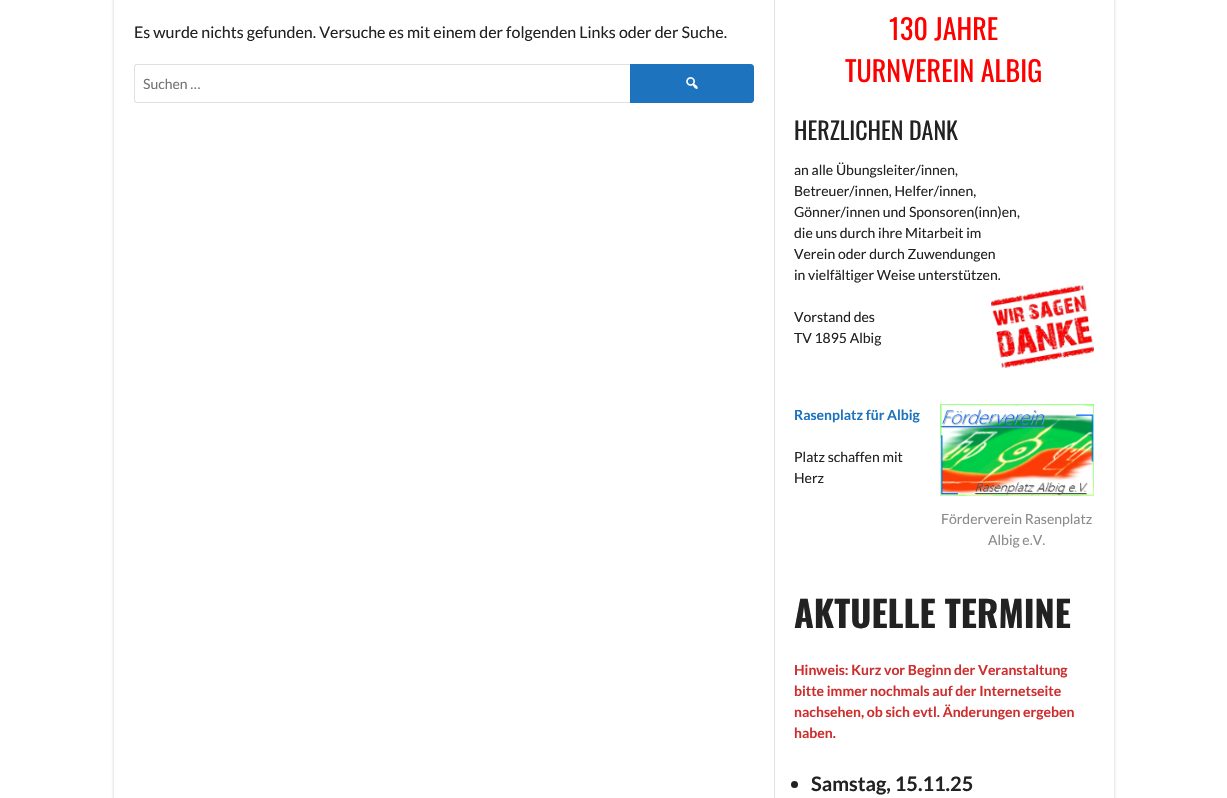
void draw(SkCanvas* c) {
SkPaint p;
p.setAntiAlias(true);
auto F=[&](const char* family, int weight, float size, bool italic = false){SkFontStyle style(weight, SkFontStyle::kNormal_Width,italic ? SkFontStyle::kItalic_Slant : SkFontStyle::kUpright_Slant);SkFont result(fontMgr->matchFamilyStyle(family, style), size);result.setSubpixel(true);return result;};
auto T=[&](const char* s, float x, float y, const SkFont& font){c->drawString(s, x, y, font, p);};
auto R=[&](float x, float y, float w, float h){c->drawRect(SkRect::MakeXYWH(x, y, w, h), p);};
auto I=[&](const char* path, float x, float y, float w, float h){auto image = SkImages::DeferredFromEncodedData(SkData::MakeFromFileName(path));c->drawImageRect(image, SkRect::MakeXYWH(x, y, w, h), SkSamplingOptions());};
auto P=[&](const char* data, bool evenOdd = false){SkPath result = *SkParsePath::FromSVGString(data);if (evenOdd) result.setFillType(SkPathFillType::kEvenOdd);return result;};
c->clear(0xffffffff);
c->save();
c->clipPath(P("M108 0h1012v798h-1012zm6-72h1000v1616h-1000z",true),true);
p.setColor(0x33000000);
p.setMaskFilter(SkMaskFilter::MakeBlur(kNormal_SkBlurStyle, 1.5));
c->drawRect(SkRect::MakeXYWH(114,-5,1000,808),p);
p.setMaskFilter(nullptr);
c->restore();
auto f1 = F("Lato",400,16);
p.setColor(0xff222222);
T("Es wurde nichts gefunden. Versuche es mit einem der folgenden Links oder der Suche.",134,38,f1);
p.setColor(0xffe0e0e0);
c->drawPath(P("M137 64h493v39h-493c-2 0-3-1-3-3v-33c0-2 1-3 3-3zm0 1h493v37h-493c-1 0-2-1-2-2v-33c0-1 1-2 2-2z",true),p);
auto f2 = F("Lato",400,14);
p.setColor(0xff757575);
T("Suchen …",143,89,f2);
p.setColor(0xff1e73be);
c->drawPath(P("M630 64h121c1.5 0 3 1.5 3 3v33c0 1.5-1.5 3-3 3h-121z"),p);
I("1.png",686,77,12,12);
p.setColor(0xffe0e0e0);
R(774,0,1,798);
auto f3 = F("Oswald",400,28);
p.setColor(0xffff0000);
T("130 JAHRE",889,40,f3);
T("TURNVEREIN ALBIG",845,82,f3);
auto f4 = F("Oswald",400,24);
p.setColor(0xff222222);
T("HERZLICHEN DANK",794,140,f4);
T("an alle Übungsleiter/innen,",794,175,f2);
T("Betreuer/innen, Helfer/innen,",794,196,f2);
T("Gönner/innen und Sponsoren(inn)en,",794,217,f2);
T("die uns durch ihre Mitarbeit im",794,238,f2);
T("Verein oder durch Zuwendungen",794,259,f2);
T("in vielfältiger Weise unterstützen.",794,280,f2);
T("Vorstand des",794,322,f2);
I("2.png",991,285,103,83);
T("TV 1895 Albig",794,343,f2);
auto f5 = F("Lato",700,14);
p.setColor(0xff1e73be);
T("Rasenplatz für Albig",794,420,f5);
p.setColor(0xff222222);
T("Platz schaffen mit",794,462,f2);
T("Herz",794,483,f2);
I("3.png",940,404,154,92);
p.setColor(0xff8b8b8b);
T("Förderverein Rasenplatz",941,524,f2);
T("Albig e.V.",988,545,f2);
auto f6 = F("Oswald",700,36);
p.setColor(0xff222222);
T("AKTUELLE TERMINE",794,628,f6);
p.setColor(0xffcf2e2e);
T("Hinweis: Kurz vor Beginn der Veranstaltung",794,675,f5);
T("bitte immer nochmals auf der Internetseite",794,696,f5);
T("nachsehen, ob sich evtl. Änderungen ergeben",794,717,f5);
T("haben.",794,738,f5);
p.setColor(0xff222222);
c->drawCircle(794.5,784.5,3.5,p);
auto f7 = F("Lato",700,20);
T("Samstag, 15.11.25",811,791,f7);
}
